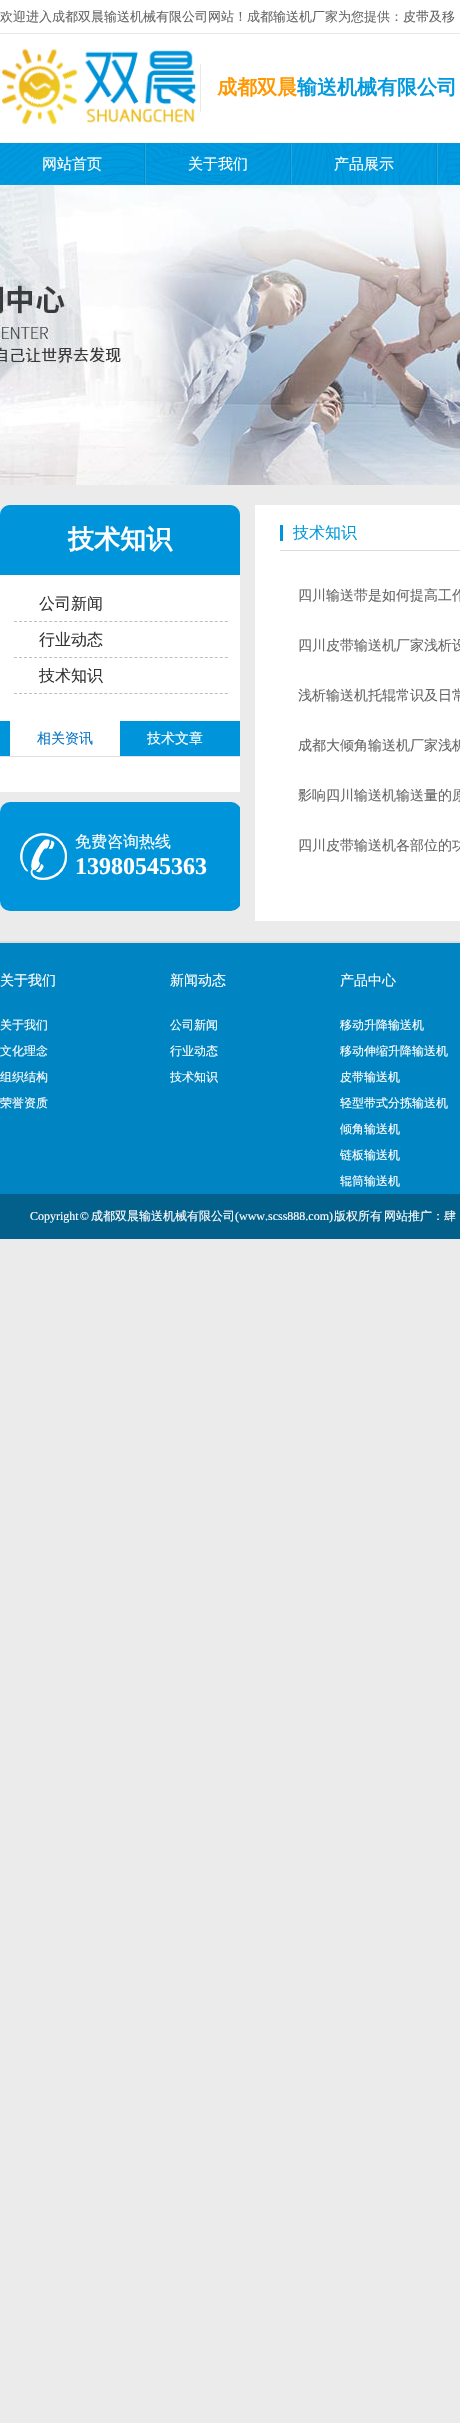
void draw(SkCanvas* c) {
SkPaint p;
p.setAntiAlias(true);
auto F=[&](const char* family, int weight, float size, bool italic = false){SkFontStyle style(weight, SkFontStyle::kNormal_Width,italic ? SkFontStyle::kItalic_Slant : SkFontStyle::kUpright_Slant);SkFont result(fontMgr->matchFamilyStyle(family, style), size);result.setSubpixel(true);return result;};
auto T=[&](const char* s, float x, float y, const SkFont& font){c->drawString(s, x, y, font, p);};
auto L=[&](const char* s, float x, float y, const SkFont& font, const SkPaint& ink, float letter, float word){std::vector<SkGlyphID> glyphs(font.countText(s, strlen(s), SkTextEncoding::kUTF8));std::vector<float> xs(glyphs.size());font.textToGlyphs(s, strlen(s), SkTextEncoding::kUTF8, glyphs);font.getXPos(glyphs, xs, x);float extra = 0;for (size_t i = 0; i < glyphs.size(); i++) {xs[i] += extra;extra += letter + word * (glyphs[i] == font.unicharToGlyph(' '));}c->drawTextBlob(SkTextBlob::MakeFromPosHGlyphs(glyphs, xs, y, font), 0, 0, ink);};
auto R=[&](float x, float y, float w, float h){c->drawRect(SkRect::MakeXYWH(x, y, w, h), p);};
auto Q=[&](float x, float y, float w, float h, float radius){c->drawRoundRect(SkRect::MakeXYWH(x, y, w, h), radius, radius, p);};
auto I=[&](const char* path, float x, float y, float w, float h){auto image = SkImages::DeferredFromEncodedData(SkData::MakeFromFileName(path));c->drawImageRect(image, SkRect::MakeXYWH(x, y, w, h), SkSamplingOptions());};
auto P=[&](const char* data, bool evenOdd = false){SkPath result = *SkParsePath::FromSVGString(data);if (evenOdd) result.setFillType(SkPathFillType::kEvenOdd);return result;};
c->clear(0xffebebeb);
p.setColor(0xffffffff);
R(0,0,460,143);
p.setColor(0xffe8e8e8);
R(0,33,460,1);
auto f1 = F("WenQuanYi Zen Hei",500,13);
p.setColor(0xff666666);
T("欢迎进入成都双晨输送机械有限公司网站！成都输送机厂家为您提供：皮带及移",0,21,f1);
I("1.png",2,48,195,77);
p.setColor(0xffe8e8e8);
R(200,64,1,48);
auto f2 = F("WenQuanYi Zen Hei",700,20);
p.setColor(0xffff9800);
T("成都双晨",217,94,f2);
p.setColor(0xff0299de);
T("输送机械有限公司",297,94,f2);
I("2.png",0,143,460,42);
p.setColor(0xff008eca);
R(144,143,1,42);
auto f3 = F("WenQuanYi Zen Hei",500,15);
p.setColor(0xffffffff);
T("网站首页",42,169,f3);
p.setColor(0xff008eca);
R(290,143,1,42);
p.setColor(0xff22a7e0);
R(145,143,1,42);
p.setColor(0xffffffff);
T("关于我们",188,169,f3);
p.setColor(0xff008eca);
R(436,143,1,42);
p.setColor(0xff22a7e0);
R(291,143,1,42);
p.setColor(0xffffffff);
T("产品展示",334,169,f3);
p.setColor(0xff22a7e0);
R(437,143,1,42);
I("3.png",0,185,460,300);
p.setColor(0xff0094da);
c->drawPath(P("M10 505h220c5.5 0 10 4.5 10 10v60h-240v-60c0-5.5 4.5-10 10-10z"),p);
auto f4 = F("WenQuanYi Zen Hei",700,26);
p.setColor(0xffffffff);
T("技术知识",68,548,f4);
R(0,575,240,217);
p.setStroke(true);
p.setStrokeWidth(1);
p.setColor(0xffbfbfbf);
p.setPathEffect(SkDashPathEffect::Make({{3,2.02f}}, 0));
c->drawPath(P("M14 621.5h214"),p);
p.setPathEffect(nullptr);
auto f5 = F("WenQuanYi Zen Hei",500,16);
p.setStroke(false);
p.setColor(0xff333333);
T("公司新闻",39,609,f5);
p.setStroke(true);
p.setColor(0xffbfbfbf);
p.setPathEffect(SkDashPathEffect::Make({{3,2.02f}}, 0));
c->drawPath(P("M14 657.5h214"),p);
p.setPathEffect(nullptr);
p.setStroke(false);
p.setColor(0xff333333);
T("行业动态",39,645,f5);
p.setStroke(true);
p.setColor(0xffbfbfbf);
p.setPathEffect(SkDashPathEffect::Make({{3,2.02f}}, 0));
c->drawPath(P("M14 693.5h214"),p);
p.setPathEffect(nullptr);
p.setStroke(false);
p.setColor(0xff333333);
T("技术知识",39,681,f5);
p.setColor(0xff0094da);
R(0,721,240,35);
p.setColor(0xffe0e0e0);
R(0,756,240,1);
p.setColor(0xffffffff);
R(10,721,110,35);
auto f6 = F("WenQuanYi Zen Hei",500,14);
p.setColor(0xff0474c8);
T("相关资讯",37,743,f6);
p.setColor(0xffffffff);
T("技术文章",147,743,f6);
c->save();
c->clipRect(SkRect::MakeXYWH(0,505,240,406));
p.setColor(0xff0094da);
Q(0,802,241,109,10);
c->restore();
I("4.png",20,833,47,47);
p.setColor(0xffffffff);
T("免费咨询热线",75,847,f5);
auto f7 = F("Liberation Serif",700,24);
T("13980545363",75,874,f7);
R(255,505,205,416);
p.setColor(0xffdbdbdb);
R(280,550,180,1);
p.setColor(0xff0094da);
R(280,525,3,16);
p.setColor(0xff0299de);
T("技术知识",293,538,f5);
p.setColor(0xff666666);
T("四川输送带是如何提高工作",298,600,f6);
T("四川皮带输送机厂家浅析设",298,650,f6);
T("浅析输送机托辊常识及日常",298,700,f6);
T("成都大倾角输送机厂家浅析",298,750,f6);
T("影响四川输送机输送量的原",298,800,f6);
T("四川皮带输送机各部位的功",298,850,f6);
p.setColor(0xffdddddd);
R(0,941,460,2);
p.setColor(0xff0084c2);
R(0,943,460,251);
p.setColor(0xffffffff);
T("关于我们",0,985,f6);
auto f8 = F("WenQuanYi Zen Hei",500,12);
T("关于我们",0,1029,f8);
T("文化理念",0,1055,f8);
T("组织结构",0,1081,f8);
T("荣誉资质",0,1107,f8);
T("新闻动态",170,985,f6);
T("公司新闻",170,1029,f8);
T("行业动态",170,1055,f8);
T("技术知识",170,1081,f8);
T("产品中心",340,985,f6);
T("移动升降输送机",340,1029,f8);
T("移动伸缩升降输送机",340,1055,f8);
T("皮带输送机",340,1081,f8);
T("轻型带式分拣输送机",340,1107,f8);
T("倾角输送机",340,1133,f8);
T("链板输送机",340,1159,f8);
T("辊筒输送机",340,1185,f8);
p.setColor(0xff03608b);
R(0,1194,460,45);
auto f9 = F("Liberation Serif",400,12);
p.setColor(0xffffffff);
L("Copyright ©",30,1220,f9,p,0,-2);
T("成都双晨输送机械有限公司",91,1220,f8);
T("(www.scss888.com)",235,1220,f9);
T("版权所有",334,1220,f8);
T("网站推广：肆",384,1220,f8);
}
